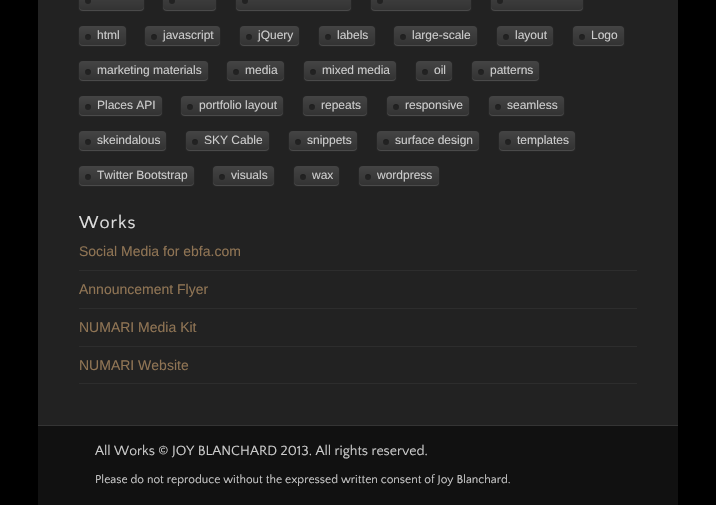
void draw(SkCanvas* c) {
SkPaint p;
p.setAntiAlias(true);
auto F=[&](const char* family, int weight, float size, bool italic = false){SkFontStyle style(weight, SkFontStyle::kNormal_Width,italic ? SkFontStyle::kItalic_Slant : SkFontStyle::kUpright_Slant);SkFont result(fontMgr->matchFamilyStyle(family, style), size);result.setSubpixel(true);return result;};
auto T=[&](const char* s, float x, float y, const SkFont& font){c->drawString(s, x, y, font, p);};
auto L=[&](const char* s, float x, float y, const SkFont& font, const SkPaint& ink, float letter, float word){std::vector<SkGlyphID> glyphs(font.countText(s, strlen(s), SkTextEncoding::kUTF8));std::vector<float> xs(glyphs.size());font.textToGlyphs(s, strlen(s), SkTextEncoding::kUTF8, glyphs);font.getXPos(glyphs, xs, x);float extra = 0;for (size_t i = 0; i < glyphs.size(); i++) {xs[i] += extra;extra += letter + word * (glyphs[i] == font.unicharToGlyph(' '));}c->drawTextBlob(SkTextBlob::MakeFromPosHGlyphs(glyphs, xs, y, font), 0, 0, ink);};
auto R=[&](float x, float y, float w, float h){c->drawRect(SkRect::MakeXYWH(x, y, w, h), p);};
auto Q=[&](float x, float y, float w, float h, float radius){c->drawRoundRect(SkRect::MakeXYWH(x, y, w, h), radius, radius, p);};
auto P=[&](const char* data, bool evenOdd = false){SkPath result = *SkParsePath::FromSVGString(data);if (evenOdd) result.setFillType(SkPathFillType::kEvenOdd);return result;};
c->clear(0xff000000);
p.setColor(0xff222222);
R(38,0,640,425);
p.setColor(0x33ffffff);
p.setMaskFilter(SkMaskFilter::MakeBlur(kNormal_SkBlurStyle, .5));
c->drawRoundRect(SkRect::MakeXYWH(79,-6,65,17),4,4,p);
p.setMaskFilter(nullptr);
{
const SkColor colors[] = {0xff444444,0xff333333};
const float stops[] = {0,1};
const SkPoint ends[] = {{112,-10}, {112,10}};
p.setShader(SkGradientShader::MakeLinear(ends, colors, stops, 2, SkTileMode::kClamp));
p.setAlpha(255);
}
Q(79,-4,65,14,4);
p.setShader(nullptr);
p.setColor(0xff222222);
c->drawCircle(88,1,3,p);
p.setColor(0x33ffffff);
p.setMaskFilter(SkMaskFilter::MakeBlur(kNormal_SkBlurStyle, .5));
c->drawRoundRect(SkRect::MakeXYWH(163,-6,53,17),4,4,p);
p.setMaskFilter(nullptr);
{
const SkColor colors[] = {0xff444444,0xff333333};
const float stops[] = {0,1};
const SkPoint ends[] = {{190,-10}, {190,10}};
p.setShader(SkGradientShader::MakeLinear(ends, colors, stops, 2, SkTileMode::kClamp));
p.setAlpha(255);
}
Q(163,-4,53,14,4);
p.setShader(nullptr);
p.setColor(0xff222222);
c->drawCircle(172,1,3,p);
p.setColor(0x33ffffff);
p.setMaskFilter(SkMaskFilter::MakeBlur(kNormal_SkBlurStyle, .5));
c->drawRoundRect(SkRect::MakeXYWH(236,-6,115,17),4,4,p);
p.setMaskFilter(nullptr);
{
const SkColor colors[] = {0xff444444,0xff333333};
const float stops[] = {0,1};
const SkPoint ends[] = {{294,-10}, {294,10}};
p.setShader(SkGradientShader::MakeLinear(ends, colors, stops, 2, SkTileMode::kClamp));
p.setAlpha(255);
}
Q(236,-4,115,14,4);
p.setShader(nullptr);
p.setColor(0xff222222);
c->drawCircle(245,1,3,p);
p.setColor(0x33ffffff);
p.setMaskFilter(SkMaskFilter::MakeBlur(kNormal_SkBlurStyle, .5));
c->drawRoundRect(SkRect::MakeXYWH(371,-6,100,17),4,4,p);
p.setMaskFilter(nullptr);
{
const SkColor colors[] = {0xff444444,0xff333333};
const float stops[] = {0,1};
const SkPoint ends[] = {{421,-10}, {421,10}};
p.setShader(SkGradientShader::MakeLinear(ends, colors, stops, 2, SkTileMode::kClamp));
p.setAlpha(255);
}
Q(371,-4,100,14,4);
p.setShader(nullptr);
p.setColor(0xff222222);
c->drawCircle(380,1,3,p);
p.setColor(0x33ffffff);
p.setMaskFilter(SkMaskFilter::MakeBlur(kNormal_SkBlurStyle, .5));
c->drawRoundRect(SkRect::MakeXYWH(491,-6,92,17),4,4,p);
p.setMaskFilter(nullptr);
{
const SkColor colors[] = {0xff444444,0xff333333};
const float stops[] = {0,1};
const SkPoint ends[] = {{537,-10}, {537,10}};
p.setShader(SkGradientShader::MakeLinear(ends, colors, stops, 2, SkTileMode::kClamp));
p.setAlpha(255);
}
Q(491,-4,92,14,4);
p.setShader(nullptr);
p.setColor(0xff222222);
c->drawCircle(500,1,3,p);
p.setColor(0x33ffffff);
p.setMaskFilter(SkMaskFilter::MakeBlur(kNormal_SkBlurStyle, .5));
c->drawRoundRect(SkRect::MakeXYWH(79,27,47,19),4,4,p);
p.setMaskFilter(nullptr);
{
const SkColor colors[] = {0xff444444,0xff333333};
const float stops[] = {0,1};
const SkPoint ends[] = {{103,26}, {103,45}};
p.setShader(SkGradientShader::MakeLinear(ends, colors, stops, 2, SkTileMode::kClamp));
p.setAlpha(255);
}
Q(79,26,47,19,4);
p.setShader(nullptr);
p.setColor(0xff222222);
c->drawCircle(88,37,3,p);
p.setColor(0x33000000);
c->drawPath(P("M88 35c2 0 3 1 3 2.5c.5-4.5-6.5-4.5-6 0c0-1.5 1-2.5 3-2.5z"),p);
auto f1 = F("Liberation Sans",400,12);
p.setColor(0xffcccccc);
T("html",97,39,f1);
p.setColor(0x33ffffff);
p.setMaskFilter(SkMaskFilter::MakeBlur(kNormal_SkBlurStyle, .5));
c->drawRoundRect(SkRect::MakeXYWH(145,27,75,19),4,4,p);
p.setMaskFilter(nullptr);
{
const SkColor colors[] = {0xff444444,0xff333333};
const float stops[] = {0,1};
const SkPoint ends[] = {{183,26}, {183,45}};
p.setShader(SkGradientShader::MakeLinear(ends, colors, stops, 2, SkTileMode::kClamp));
p.setAlpha(255);
}
Q(145,26,75,19,4);
p.setShader(nullptr);
p.setColor(0xff222222);
c->drawCircle(154,37,3,p);
p.setColor(0x33000000);
c->drawPath(P("M154 35c2 0 3 1 3 2.5c.5-4.5-6.5-4.5-6 0c0-1.5 1-2.5 3-2.5z"),p);
p.setColor(0xffcccccc);
T("javascript",163,39,f1);
p.setColor(0x33ffffff);
p.setMaskFilter(SkMaskFilter::MakeBlur(kNormal_SkBlurStyle, .5));
c->drawRoundRect(SkRect::MakeXYWH(240,27,59,19),4,4,p);
p.setMaskFilter(nullptr);
{
const SkColor colors[] = {0xff444444,0xff333333};
const float stops[] = {0,1};
const SkPoint ends[] = {{270,26}, {270,45}};
p.setShader(SkGradientShader::MakeLinear(ends, colors, stops, 2, SkTileMode::kClamp));
p.setAlpha(255);
}
Q(240,26,59,19,4);
p.setShader(nullptr);
p.setColor(0xff222222);
c->drawCircle(249,37,3,p);
p.setColor(0x33000000);
c->drawPath(P("M249 35c2 0 3 1 3 2.5c.5-4.5-6.5-4.5-6 0c0-1.5 1-2.5 3-2.5z"),p);
p.setColor(0xffcccccc);
T("jQuery",258,39,f1);
p.setColor(0x33ffffff);
p.setMaskFilter(SkMaskFilter::MakeBlur(kNormal_SkBlurStyle, .5));
c->drawRoundRect(SkRect::MakeXYWH(319,27,56,19),4,4,p);
p.setMaskFilter(nullptr);
{
const SkColor colors[] = {0xff444444,0xff333333};
const float stops[] = {0,1};
const SkPoint ends[] = {{347,26}, {347,45}};
p.setShader(SkGradientShader::MakeLinear(ends, colors, stops, 2, SkTileMode::kClamp));
p.setAlpha(255);
}
Q(319,26,56,19,4);
p.setShader(nullptr);
p.setColor(0xff222222);
c->drawCircle(328,37,3,p);
p.setColor(0x33000000);
c->drawPath(P("M328 35c2 0 3 1 3 2.5c.5-4.5-6.5-4.5-6 0c0-1.5 1-2.5 3-2.5z"),p);
p.setColor(0xffcccccc);
T("labels",337,39,f1);
p.setColor(0x33ffffff);
p.setMaskFilter(SkMaskFilter::MakeBlur(kNormal_SkBlurStyle, .5));
c->drawRoundRect(SkRect::MakeXYWH(394,27,83,19),4,4,p);
p.setMaskFilter(nullptr);
{
const SkColor colors[] = {0xff444444,0xff333333};
const float stops[] = {0,1};
const SkPoint ends[] = {{436,26}, {436,45}};
p.setShader(SkGradientShader::MakeLinear(ends, colors, stops, 2, SkTileMode::kClamp));
p.setAlpha(255);
}
Q(394,26,83,19,4);
p.setShader(nullptr);
p.setColor(0xff222222);
c->drawCircle(403,37,3,p);
p.setColor(0x33000000);
c->drawPath(P("M403 35c2 0 3 1 3 2.5c.5-4.5-6.5-4.5-6 0c0-1.5 1-2.5 3-2.5z"),p);
p.setColor(0xffcccccc);
T("large-scale",412,39,f1);
p.setColor(0x33ffffff);
p.setMaskFilter(SkMaskFilter::MakeBlur(kNormal_SkBlurStyle, .5));
c->drawRoundRect(SkRect::MakeXYWH(497,27,56,19),4,4,p);
p.setMaskFilter(nullptr);
{
const SkColor colors[] = {0xff444444,0xff333333};
const float stops[] = {0,1};
const SkPoint ends[] = {{525,26}, {525,45}};
p.setShader(SkGradientShader::MakeLinear(ends, colors, stops, 2, SkTileMode::kClamp));
p.setAlpha(255);
}
Q(497,26,56,19,4);
p.setShader(nullptr);
p.setColor(0xff222222);
c->drawCircle(506,37,3,p);
p.setColor(0x33000000);
c->drawPath(P("M506 35c2 0 3 1 3 2.5c.5-4.5-6.5-4.5-6 0c0-1.5 1-2.5 3-2.5z"),p);
p.setColor(0xffcccccc);
T("layout",515,39,f1);
p.setColor(0x33ffffff);
p.setMaskFilter(SkMaskFilter::MakeBlur(kNormal_SkBlurStyle, .5));
c->drawRoundRect(SkRect::MakeXYWH(573,27,51,19),4,4,p);
p.setMaskFilter(nullptr);
{
const SkColor colors[] = {0xff444444,0xff333333};
const float stops[] = {0,1};
const SkPoint ends[] = {{599,26}, {599,45}};
p.setShader(SkGradientShader::MakeLinear(ends, colors, stops, 2, SkTileMode::kClamp));
p.setAlpha(255);
}
Q(573,26,51,19,4);
p.setShader(nullptr);
p.setColor(0xff222222);
c->drawCircle(582,37,3,p);
p.setColor(0x33000000);
c->drawPath(P("M582 35c2 0 3 1 3 2.5c.5-4.5-6.5-4.5-6 0c0-1.5 1-2.5 3-2.5z"),p);
p.setColor(0xffcccccc);
T("Logo",591,39,f1);
p.setColor(0x33ffffff);
p.setMaskFilter(SkMaskFilter::MakeBlur(kNormal_SkBlurStyle, .5));
c->drawRoundRect(SkRect::MakeXYWH(79,62,129,19),4,4,p);
p.setMaskFilter(nullptr);
{
const SkColor colors[] = {0xff444444,0xff333333};
const float stops[] = {0,1};
const SkPoint ends[] = {{144,61}, {144,80}};
p.setShader(SkGradientShader::MakeLinear(ends, colors, stops, 2, SkTileMode::kClamp));
p.setAlpha(255);
}
Q(79,61,129,19,4);
p.setShader(nullptr);
p.setColor(0xff222222);
c->drawCircle(88,72,3,p);
p.setColor(0x33000000);
c->drawPath(P("M88 70c2 0 3 1 3 2.5c.5-4.5-6.5-4.5-6 0c0-1.5 1-2.5 3-2.5z"),p);
p.setColor(0xffcccccc);
T("marketing materials",97,74,f1);
p.setColor(0x33ffffff);
p.setMaskFilter(SkMaskFilter::MakeBlur(kNormal_SkBlurStyle, .5));
c->drawRoundRect(SkRect::MakeXYWH(227,62,57,19),4,4,p);
p.setMaskFilter(nullptr);
{
const SkColor colors[] = {0xff444444,0xff333333};
const float stops[] = {0,1};
const SkPoint ends[] = {{256,61}, {256,80}};
p.setShader(SkGradientShader::MakeLinear(ends, colors, stops, 2, SkTileMode::kClamp));
p.setAlpha(255);
}
Q(227,61,57,19,4);
p.setShader(nullptr);
p.setColor(0xff222222);
c->drawCircle(236,72,3,p);
p.setColor(0x33000000);
c->drawPath(P("M236 70c2 0 3 1 3 2.5c.5-4.5-6.5-4.5-6 0c0-1.5 1-2.5 3-2.5z"),p);
p.setColor(0xffcccccc);
T("media",245,74,f1);
p.setColor(0x33ffffff);
p.setMaskFilter(SkMaskFilter::MakeBlur(kNormal_SkBlurStyle, .5));
c->drawRoundRect(SkRect::MakeXYWH(304,62,92,19),4,4,p);
p.setMaskFilter(nullptr);
{
const SkColor colors[] = {0xff444444,0xff333333};
const float stops[] = {0,1};
const SkPoint ends[] = {{350,61}, {350,80}};
p.setShader(SkGradientShader::MakeLinear(ends, colors, stops, 2, SkTileMode::kClamp));
p.setAlpha(255);
}
Q(304,61,92,19,4);
p.setShader(nullptr);
p.setColor(0xff222222);
c->drawCircle(313,72,3,p);
p.setColor(0x33000000);
c->drawPath(P("M313 70c2 0 3 1 3 2.5c.5-4.5-6.5-4.5-6 0c0-1.5 1-2.5 3-2.5z"),p);
p.setColor(0xffcccccc);
T("mixed media",322,74,f1);
p.setColor(0x33ffffff);
p.setMaskFilter(SkMaskFilter::MakeBlur(kNormal_SkBlurStyle, .5));
c->drawRoundRect(SkRect::MakeXYWH(416,62,36,19),4,4,p);
p.setMaskFilter(nullptr);
{
const SkColor colors[] = {0xff444444,0xff333333};
const float stops[] = {0,1};
const SkPoint ends[] = {{434,61}, {434,80}};
p.setShader(SkGradientShader::MakeLinear(ends, colors, stops, 2, SkTileMode::kClamp));
p.setAlpha(255);
}
Q(416,61,36,19,4);
p.setShader(nullptr);
p.setColor(0xff222222);
c->drawCircle(425,72,3,p);
p.setColor(0x33000000);
c->drawPath(P("M425 70c2 0 3 1 3 2.5c.5-4.5-6.5-4.5-6 0c0-1.5 1-2.5 3-2.5z"),p);
p.setColor(0xffcccccc);
T("oil",434,74,f1);
p.setColor(0x33ffffff);
p.setMaskFilter(SkMaskFilter::MakeBlur(kNormal_SkBlurStyle, .5));
c->drawRoundRect(SkRect::MakeXYWH(472,62,67,19),4,4,p);
p.setMaskFilter(nullptr);
{
const SkColor colors[] = {0xff444444,0xff333333};
const float stops[] = {0,1};
const SkPoint ends[] = {{506,61}, {506,80}};
p.setShader(SkGradientShader::MakeLinear(ends, colors, stops, 2, SkTileMode::kClamp));
p.setAlpha(255);
}
Q(472,61,67,19,4);
p.setShader(nullptr);
p.setColor(0xff222222);
c->drawCircle(481,72,3,p);
p.setColor(0x33000000);
c->drawPath(P("M481 70c2 0 3 1 3 2.5c.5-4.5-6.5-4.5-6 0c0-1.5 1-2.5 3-2.5z"),p);
p.setColor(0xffcccccc);
T("patterns",490,74,f1);
p.setColor(0x33ffffff);
p.setMaskFilter(SkMaskFilter::MakeBlur(kNormal_SkBlurStyle, .5));
c->drawRoundRect(SkRect::MakeXYWH(79,97,83,19),4,4,p);
p.setMaskFilter(nullptr);
{
const SkColor colors[] = {0xff444444,0xff333333};
const float stops[] = {0,1};
const SkPoint ends[] = {{121,96}, {121,115}};
p.setShader(SkGradientShader::MakeLinear(ends, colors, stops, 2, SkTileMode::kClamp));
p.setAlpha(255);
}
Q(79,96,83,19,4);
p.setShader(nullptr);
p.setColor(0xff222222);
c->drawCircle(88,107,3,p);
p.setColor(0x33000000);
c->drawPath(P("M88 105c2 0 3 1 3 2.5c.5-4.5-6.5-4.5-6 0c0-1.5 1-2.5 3-2.5z"),p);
p.setColor(0xffcccccc);
T("Places API",97,109,f1);
p.setColor(0x33ffffff);
p.setMaskFilter(SkMaskFilter::MakeBlur(kNormal_SkBlurStyle, .5));
c->drawRoundRect(SkRect::MakeXYWH(181,97,102,19),4,4,p);
p.setMaskFilter(nullptr);
{
const SkColor colors[] = {0xff444444,0xff333333};
const float stops[] = {0,1};
const SkPoint ends[] = {{232,96}, {232,115}};
p.setShader(SkGradientShader::MakeLinear(ends, colors, stops, 2, SkTileMode::kClamp));
p.setAlpha(255);
}
Q(181,96,102,19,4);
p.setShader(nullptr);
p.setColor(0xff222222);
c->drawCircle(190,107,3,p);
p.setColor(0x33000000);
c->drawPath(P("M190 105c2 0 3 1 3 2.5c.5-4.5-6.5-4.5-6 0c0-1.5 1-2.5 3-2.5z"),p);
p.setColor(0xffcccccc);
T("portfolio layout",199,109,f1);
p.setColor(0x33ffffff);
p.setMaskFilter(SkMaskFilter::MakeBlur(kNormal_SkBlurStyle, .5));
c->drawRoundRect(SkRect::MakeXYWH(303,97,64,19),4,4,p);
p.setMaskFilter(nullptr);
{
const SkColor colors[] = {0xff444444,0xff333333};
const float stops[] = {0,1};
const SkPoint ends[] = {{335,96}, {335,115}};
p.setShader(SkGradientShader::MakeLinear(ends, colors, stops, 2, SkTileMode::kClamp));
p.setAlpha(255);
}
Q(303,96,64,19,4);
p.setShader(nullptr);
p.setColor(0xff222222);
c->drawCircle(312,107,3,p);
p.setColor(0x33000000);
c->drawPath(P("M312 105c2 0 3 1 3 2.5c.5-4.5-6.5-4.5-6 0c0-1.5 1-2.5 3-2.5z"),p);
p.setColor(0xffcccccc);
T("repeats",321,109,f1);
p.setColor(0x33ffffff);
p.setMaskFilter(SkMaskFilter::MakeBlur(kNormal_SkBlurStyle, .5));
c->drawRoundRect(SkRect::MakeXYWH(387,97,82,19),4,4,p);
p.setMaskFilter(nullptr);
{
const SkColor colors[] = {0xff444444,0xff333333};
const float stops[] = {0,1};
const SkPoint ends[] = {{428,96}, {428,115}};
p.setShader(SkGradientShader::MakeLinear(ends, colors, stops, 2, SkTileMode::kClamp));
p.setAlpha(255);
}
Q(387,96,82,19,4);
p.setShader(nullptr);
p.setColor(0xff222222);
c->drawCircle(396,107,3,p);
p.setColor(0x33000000);
c->drawPath(P("M396 105c2 0 3 1 3 2.5c.5-4.5-6.5-4.5-6 0c0-1.5 1-2.5 3-2.5z"),p);
p.setColor(0xffcccccc);
T("responsive",405,109,f1);
p.setColor(0x33ffffff);
p.setMaskFilter(SkMaskFilter::MakeBlur(kNormal_SkBlurStyle, .5));
c->drawRoundRect(SkRect::MakeXYWH(489,97,75,19),4,4,p);
p.setMaskFilter(nullptr);
{
const SkColor colors[] = {0xff444444,0xff333333};
const float stops[] = {0,1};
const SkPoint ends[] = {{527,96}, {527,115}};
p.setShader(SkGradientShader::MakeLinear(ends, colors, stops, 2, SkTileMode::kClamp));
p.setAlpha(255);
}
Q(489,96,75,19,4);
p.setShader(nullptr);
p.setColor(0xff222222);
c->drawCircle(498,107,3,p);
p.setColor(0x33000000);
c->drawPath(P("M498 105c2 0 3 1 3 2.5c.5-4.5-6.5-4.5-6 0c0-1.5 1-2.5 3-2.5z"),p);
p.setColor(0xffcccccc);
T("seamless",507,109,f1);
p.setColor(0x33ffffff);
p.setMaskFilter(SkMaskFilter::MakeBlur(kNormal_SkBlurStyle, .5));
c->drawRoundRect(SkRect::MakeXYWH(79,132,87,19),4,4,p);
p.setMaskFilter(nullptr);
{
const SkColor colors[] = {0xff444444,0xff333333};
const float stops[] = {0,1};
const SkPoint ends[] = {{123,131}, {123,150}};
p.setShader(SkGradientShader::MakeLinear(ends, colors, stops, 2, SkTileMode::kClamp));
p.setAlpha(255);
}
Q(79,131,87,19,4);
p.setShader(nullptr);
p.setColor(0xff222222);
c->drawCircle(88,142,3,p);
p.setColor(0x33000000);
c->drawPath(P("M88 140c2 0 3 1 3 2.5c.5-4.5-6.5-4.5-6 0c0-1.5 1-2.5 3-2.5z"),p);
p.setColor(0xffcccccc);
T("skeindalous",97,144,f1);
p.setColor(0x33ffffff);
p.setMaskFilter(SkMaskFilter::MakeBlur(kNormal_SkBlurStyle, .5));
c->drawRoundRect(SkRect::MakeXYWH(186,132,83,19),4,4,p);
p.setMaskFilter(nullptr);
{
const SkColor colors[] = {0xff444444,0xff333333};
const float stops[] = {0,1};
const SkPoint ends[] = {{228,131}, {228,150}};
p.setShader(SkGradientShader::MakeLinear(ends, colors, stops, 2, SkTileMode::kClamp));
p.setAlpha(255);
}
Q(186,131,83,19,4);
p.setShader(nullptr);
p.setColor(0xff222222);
c->drawCircle(195,142,3,p);
p.setColor(0x33000000);
c->drawPath(P("M195 140c2 0 3 1 3 2.5c.5-4.5-6.5-4.5-6 0c0-1.5 1-2.5 3-2.5z"),p);
p.setColor(0xffcccccc);
T("SKY Cable",204,144,f1);
p.setColor(0x33ffffff);
p.setMaskFilter(SkMaskFilter::MakeBlur(kNormal_SkBlurStyle, .5));
c->drawRoundRect(SkRect::MakeXYWH(289,132,68,19),4,4,p);
p.setMaskFilter(nullptr);
{
const SkColor colors[] = {0xff444444,0xff333333};
const float stops[] = {0,1};
const SkPoint ends[] = {{323,131}, {323,150}};
p.setShader(SkGradientShader::MakeLinear(ends, colors, stops, 2, SkTileMode::kClamp));
p.setAlpha(255);
}
Q(289,131,68,19,4);
p.setShader(nullptr);
p.setColor(0xff222222);
c->drawCircle(298,142,3,p);
p.setColor(0x33000000);
c->drawPath(P("M298 140c2 0 3 1 3 2.5c.5-4.5-6.5-4.5-6 0c0-1.5 1-2.5 3-2.5z"),p);
p.setColor(0xffcccccc);
T("snippets",307,144,f1);
p.setColor(0x33ffffff);
p.setMaskFilter(SkMaskFilter::MakeBlur(kNormal_SkBlurStyle, .5));
c->drawRoundRect(SkRect::MakeXYWH(377,132,102,19),4,4,p);
p.setMaskFilter(nullptr);
{
const SkColor colors[] = {0xff444444,0xff333333};
const float stops[] = {0,1};
const SkPoint ends[] = {{428,131}, {428,150}};
p.setShader(SkGradientShader::MakeLinear(ends, colors, stops, 2, SkTileMode::kClamp));
p.setAlpha(255);
}
Q(377,131,102,19,4);
p.setShader(nullptr);
p.setColor(0xff222222);
c->drawCircle(386,142,3,p);
p.setColor(0x33000000);
c->drawPath(P("M386 140c2 0 3 1 3 2.5c.5-4.5-6.5-4.5-6 0c0-1.5 1-2.5 3-2.5z"),p);
p.setColor(0xffcccccc);
T("surface design",395,144,f1);
p.setColor(0x33ffffff);
p.setMaskFilter(SkMaskFilter::MakeBlur(kNormal_SkBlurStyle, .5));
c->drawRoundRect(SkRect::MakeXYWH(499,132,76,19),4,4,p);
p.setMaskFilter(nullptr);
{
const SkColor colors[] = {0xff444444,0xff333333};
const float stops[] = {0,1};
const SkPoint ends[] = {{537,131}, {537,150}};
p.setShader(SkGradientShader::MakeLinear(ends, colors, stops, 2, SkTileMode::kClamp));
p.setAlpha(255);
}
Q(499,131,76,19,4);
p.setShader(nullptr);
p.setColor(0xff222222);
c->drawCircle(508,142,3,p);
p.setColor(0x33000000);
c->drawPath(P("M508 140c2 0 3 1 3 2.5c.5-4.5-6.5-4.5-6 0c0-1.5 1-2.5 3-2.5z"),p);
p.setColor(0xffcccccc);
T("templates",517,144,f1);
p.setColor(0x33ffffff);
p.setMaskFilter(SkMaskFilter::MakeBlur(kNormal_SkBlurStyle, .5));
c->drawRoundRect(SkRect::MakeXYWH(79,167,115,19),4,4,p);
p.setMaskFilter(nullptr);
{
const SkColor colors[] = {0xff444444,0xff333333};
const float stops[] = {0,1};
const SkPoint ends[] = {{137,166}, {137,185}};
p.setShader(SkGradientShader::MakeLinear(ends, colors, stops, 2, SkTileMode::kClamp));
p.setAlpha(255);
}
Q(79,166,115,19,4);
p.setShader(nullptr);
p.setColor(0xff222222);
c->drawCircle(88,177,3,p);
p.setColor(0x33000000);
c->drawPath(P("M88 175c2 0 3 1 3 2.5c.5-4.5-6.5-4.5-6 0c0-1.5 1-2.5 3-2.5z"),p);
p.setColor(0xffcccccc);
T("Twitter Bootstrap",97,179,f1);
p.setColor(0x33ffffff);
p.setMaskFilter(SkMaskFilter::MakeBlur(kNormal_SkBlurStyle, .5));
c->drawRoundRect(SkRect::MakeXYWH(213,167,61,19),4,4,p);
p.setMaskFilter(nullptr);
{
const SkColor colors[] = {0xff444444,0xff333333};
const float stops[] = {0,1};
const SkPoint ends[] = {{244,166}, {244,185}};
p.setShader(SkGradientShader::MakeLinear(ends, colors, stops, 2, SkTileMode::kClamp));
p.setAlpha(255);
}
Q(213,166,61,19,4);
p.setShader(nullptr);
p.setColor(0xff222222);
c->drawCircle(222,177,3,p);
p.setColor(0x33000000);
c->drawPath(P("M222 175c2 0 3 1 3 2.5c.5-4.5-6.5-4.5-6 0c0-1.5 1-2.5 3-2.5z"),p);
p.setColor(0xffcccccc);
T("visuals",231,179,f1);
p.setColor(0x33ffffff);
p.setMaskFilter(SkMaskFilter::MakeBlur(kNormal_SkBlurStyle, .5));
c->drawRoundRect(SkRect::MakeXYWH(294,167,45,19),4,4,p);
p.setMaskFilter(nullptr);
{
const SkColor colors[] = {0xff444444,0xff333333};
const float stops[] = {0,1};
const SkPoint ends[] = {{317,166}, {317,185}};
p.setShader(SkGradientShader::MakeLinear(ends, colors, stops, 2, SkTileMode::kClamp));
p.setAlpha(255);
}
Q(294,166,45,19,4);
p.setShader(nullptr);
p.setColor(0xff222222);
c->drawCircle(303,177,3,p);
p.setColor(0x33000000);
c->drawPath(P("M303 175c2 0 3 1 3 2.5c.5-4.5-6.5-4.5-6 0c0-1.5 1-2.5 3-2.5z"),p);
p.setColor(0xffcccccc);
T("wax",312,179,f1);
p.setColor(0x33ffffff);
p.setMaskFilter(SkMaskFilter::MakeBlur(kNormal_SkBlurStyle, .5));
c->drawRoundRect(SkRect::MakeXYWH(359,167,80,19),4,4,p);
p.setMaskFilter(nullptr);
{
const SkColor colors[] = {0xff444444,0xff333333};
const float stops[] = {0,1};
const SkPoint ends[] = {{399,166}, {399,185}};
p.setShader(SkGradientShader::MakeLinear(ends, colors, stops, 2, SkTileMode::kClamp));
p.setAlpha(255);
}
Q(359,166,80,19,4);
p.setShader(nullptr);
p.setColor(0xff222222);
c->drawCircle(368,177,3,p);
p.setColor(0x33000000);
c->drawPath(P("M368 175c2 0 3 1 3 2.5c.5-4.5-6.5-4.5-6 0c0-1.5 1-2.5 3-2.5z"),p);
p.setColor(0xffcccccc);
T("wordpress",377,179,f1);
auto f2 = F("Quattrocento Sans",400,18);
p.setColor(0xffe0e0e0);
L("Works",79,228,f2,p,1,0);
p.setColor(0xff2d2d2d);
R(79,270,558,1);
auto f3 = F("Liberation Sans",400,14);
p.setColor(0xff8f7454);
T("Social Media for ebfa.com",79,256,f3);
p.setColor(0xff2d2d2d);
R(79,308,558,1);
p.setColor(0xff8f7454);
T("Announcement Flyer",79,294,f3);
p.setColor(0xff2d2d2d);
R(79,346,558,1);
p.setColor(0xff8f7454);
T("NUMARI Media Kit",79,332,f3);
p.setColor(0xff2d2d2d);
R(79,383,558,1);
p.setColor(0xff8f7454);
T("NUMARI Website",79,370,f3);
p.setColor(0xff111111);
R(38,426,640,79);
p.setColor(0xff343434);
R(38,425,640,1);
auto f4 = F("Quattrocento Sans",400,14);
p.setColor(0xffcccccc);
T("All Works © JOY BLANCHARD 2013. All rights reserved.",95,455,f4);
auto f5 = F("Quattrocento Sans",400,11.9);
T("Please do not reproduce without the expressed written consent of Joy Blanchard.",95,483,f5);
}
